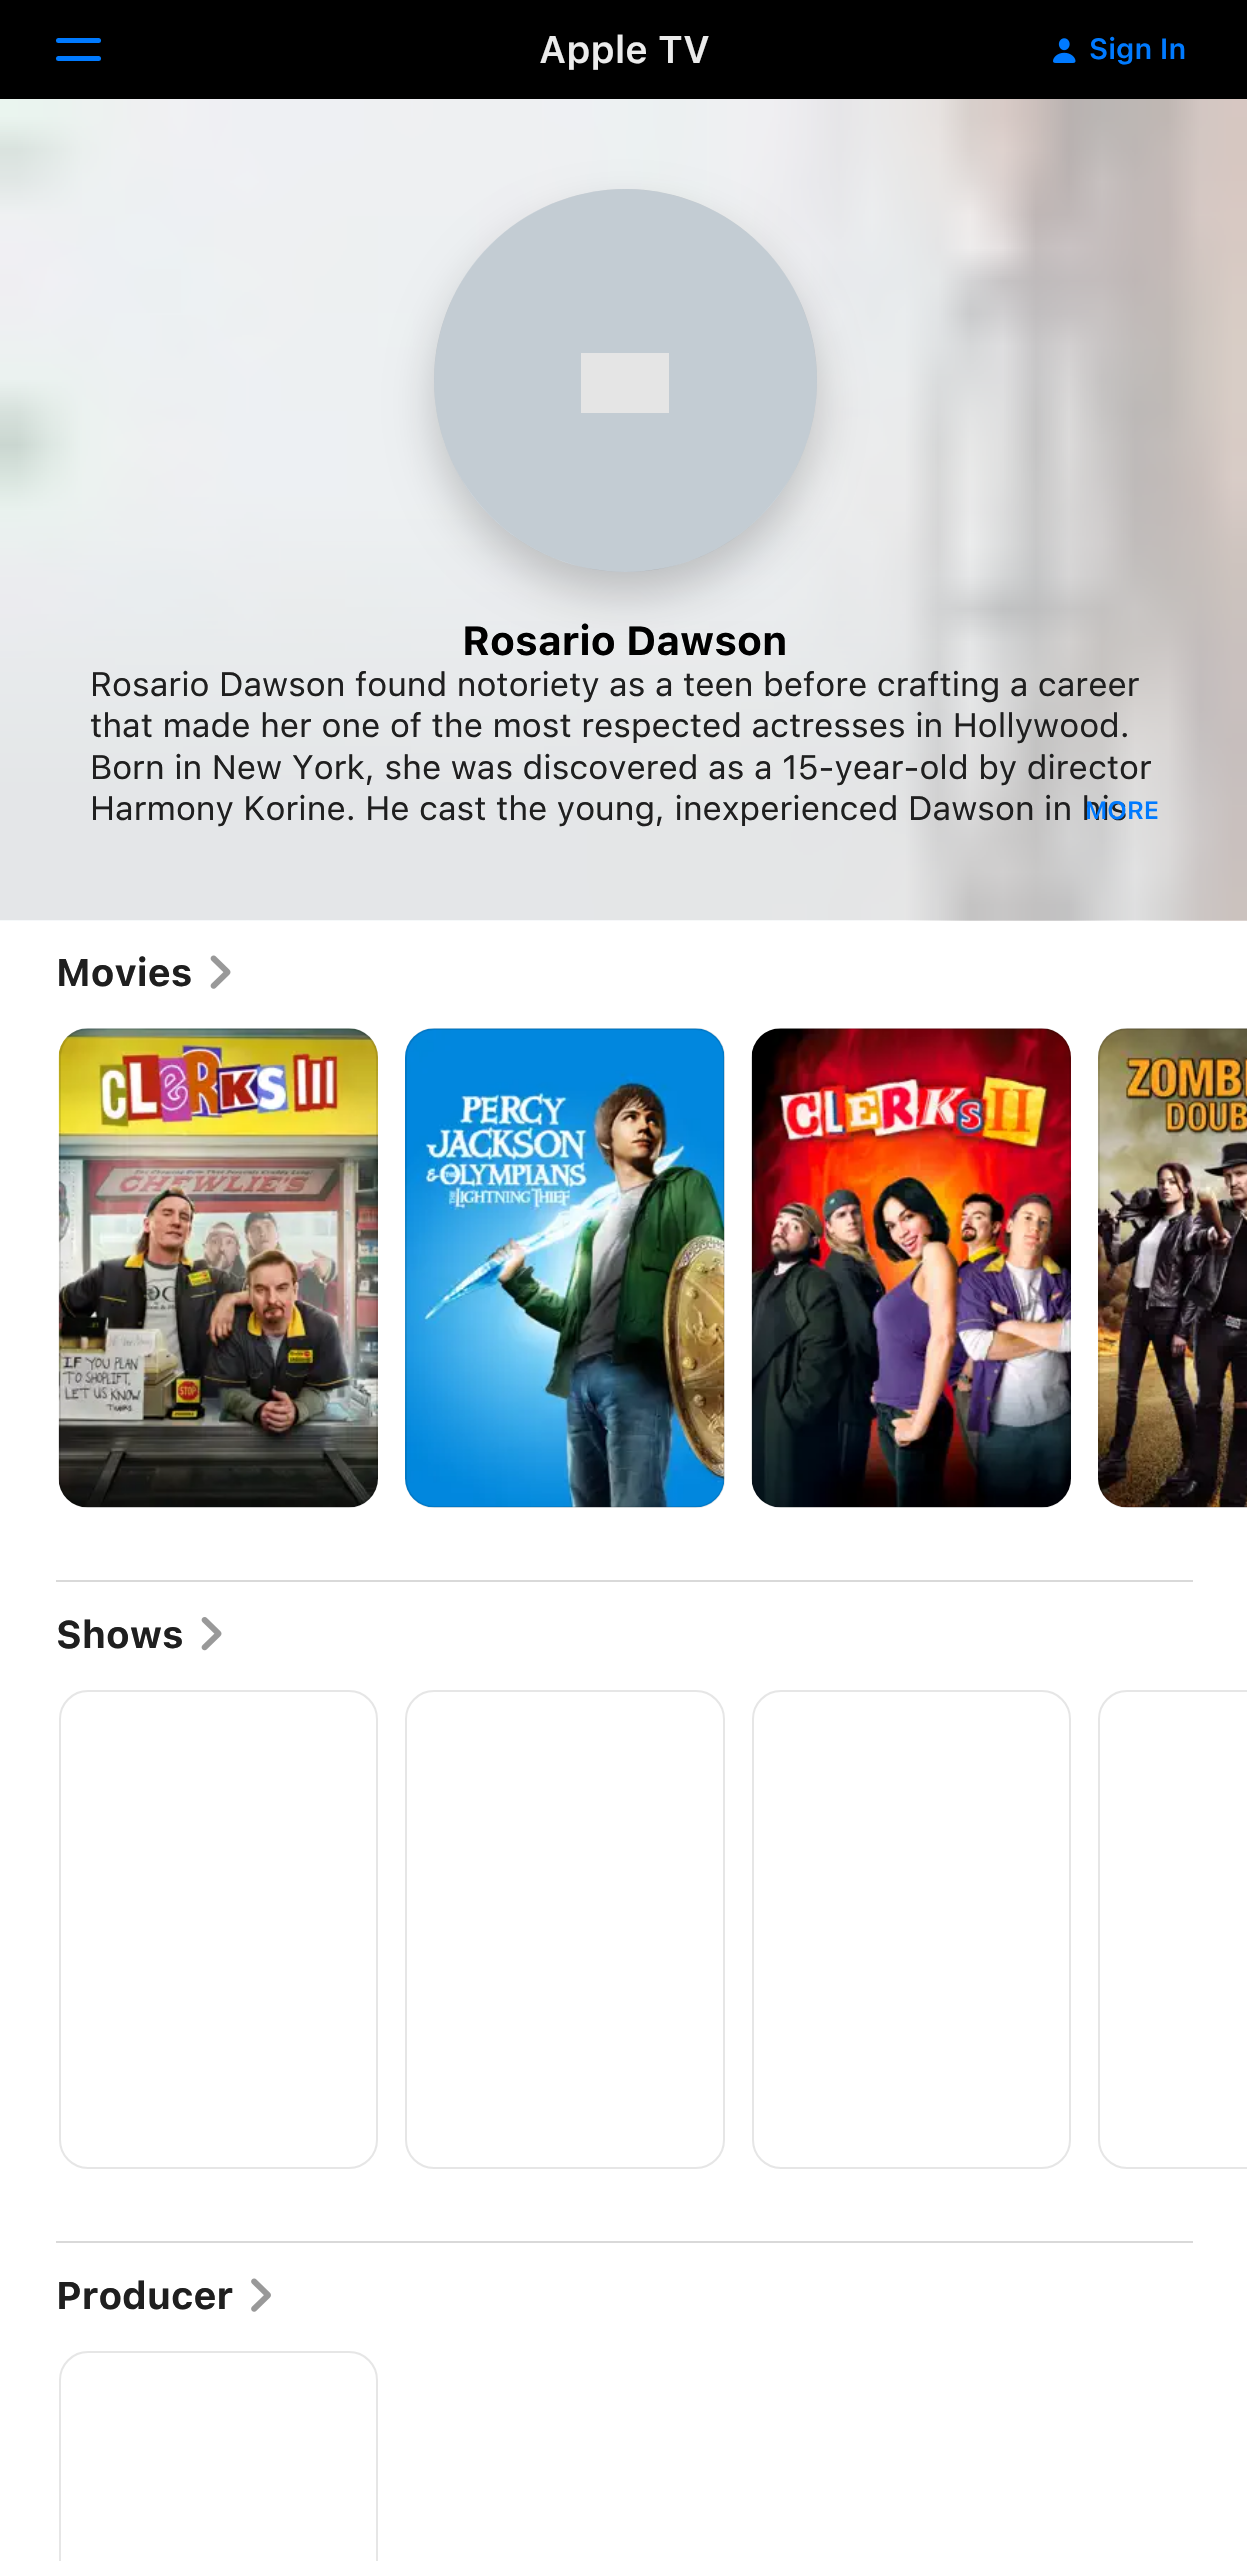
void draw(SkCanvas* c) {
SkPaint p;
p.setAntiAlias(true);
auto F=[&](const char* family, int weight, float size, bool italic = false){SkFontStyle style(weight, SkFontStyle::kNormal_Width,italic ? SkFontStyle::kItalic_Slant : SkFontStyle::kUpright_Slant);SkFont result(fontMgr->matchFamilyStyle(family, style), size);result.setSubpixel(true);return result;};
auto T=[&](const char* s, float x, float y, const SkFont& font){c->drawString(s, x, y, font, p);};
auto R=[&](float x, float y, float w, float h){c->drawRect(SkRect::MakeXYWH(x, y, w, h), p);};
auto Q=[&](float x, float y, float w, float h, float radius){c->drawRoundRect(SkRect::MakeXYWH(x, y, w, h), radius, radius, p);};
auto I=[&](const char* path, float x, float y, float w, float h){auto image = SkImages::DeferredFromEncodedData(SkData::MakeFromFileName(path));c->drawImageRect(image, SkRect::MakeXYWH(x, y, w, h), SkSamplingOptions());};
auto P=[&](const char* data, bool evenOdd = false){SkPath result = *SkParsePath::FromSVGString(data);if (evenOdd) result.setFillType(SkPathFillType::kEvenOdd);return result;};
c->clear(0xffffffff);
p.setColor(0xff000000);
R(0,0,1247,99);
p.setColor(0xff007aff);
Q(56,38,45,5,2.5);
Q(56,56,45,5,2.5);
auto f1 = F("SF",600,38.25);
p.setColor(0xffebebeb);
T("Apple TV",539,63,f1);
I("1.png",1053,38,23,25);
auto f2 = F("SF",600,29);
p.setColor(0xff007aff);
T("Sign In",1089,59,f2);
I("2.png",0,99,1247,822);
p.setColor(0x33000000);
p.setMaskFilter(SkMaskFilter::MakeBlur(kNormal_SkBlurStyle, 22.5));
c->drawRoundRect(SkRect::MakeXYWH(434,212,383,382),191,191,p);
p.setMaskFilter(nullptr);
p.setStroke(true);
p.setStrokeWidth(2);
p.setColor(0x14000000);
c->drawCircle(625.5,380.5,190.5,p);
p.setStroke(false);
p.setColor(0xffd9e3eb);
c->drawCircle(625.5,380.5,191.5,p);
p.setColor(0xffffffff);
R(581,353,88,60);
p.setColor(0x1a000000);
c->drawPath(P("M626 189c105 0 191 86 191 191c0 106-86 192-191 192c-106 0-192-86-192-192c0-105 86-191 192-191z"),p);
auto f3 = F("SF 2",700,40.5);
p.setColor(0xff000000);
T("Rosario Dawson",462,655,f3);
auto f4 = F("SF",400,33.75);
p.setColor(0xff1f1f1f);
T("Rosario Dawson found notoriety as a teen before crafting a career",90,696,f4);
T("that made her one of the most respected actresses in Hollywood.",90,737,f4);
T("Born in New York, she was discovered as a 15-year-old by director",90,779,f4);
T("Harmony Korine. He cast the young, inexperienced Dawson in his",90,820,f4);
auto f5 = F("SF",600,25);
p.setColor(0xff007aff);
T("MORE",1085,819,f5);
auto f6 = F("SF",700,38.25);
p.setColor(0xff1f1f1f);
T("Movies",56,986,f6);
I("3.png",210,955,21,34);
I("4.png",58,1028,320,480);
p.setStroke(true);
p.setColor(0x1a000000);
c->drawRoundRect(SkRect::MakeXYWH(60,1029,317,478),28,28,p);
I("5.png",405,1028,320,480);
c->drawRoundRect(SkRect::MakeXYWH(406,1029,318,478),28,28,p);
I("6.png",751,1028,320,480);
c->drawRoundRect(SkRect::MakeXYWH(753,1029,317,478),28,28,p);
I("7.png",1098,1028,149,480);
c->drawRoundRect(SkRect::MakeXYWH(1099,1029,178,478),28,28,p);
p.setStroke(false);
p.setColor(0xffd9d9d9);
R(56,1580,1137,2);
p.setColor(0xff1f1f1f);
T("Shows",56,1648,f6);
I("8.png",201,1617,21,34);
p.setStroke(true);
p.setColor(0xffe6e6e6);
c->drawRoundRect(SkRect::MakeXYWH(60,1691,317,477),28,28,p);
c->drawRoundRect(SkRect::MakeXYWH(406,1691,318,477),28,28,p);
c->drawRoundRect(SkRect::MakeXYWH(753,1691,317,477),28,28,p);
c->drawRoundRect(SkRect::MakeXYWH(1099,1691,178,477),28,28,p);
p.setStroke(false);
p.setColor(0xffd9d9d9);
R(56,2241,1137,2);
p.setColor(0xff1f1f1f);
T("Producer",56,2309,f6);
I("9.png",251,2278,20,34);
p.setStroke(true);
p.setColor(0xffe6e6e6);
c->drawRoundRect(SkRect::MakeXYWH(60,2352,317,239),28,28,p);
}
